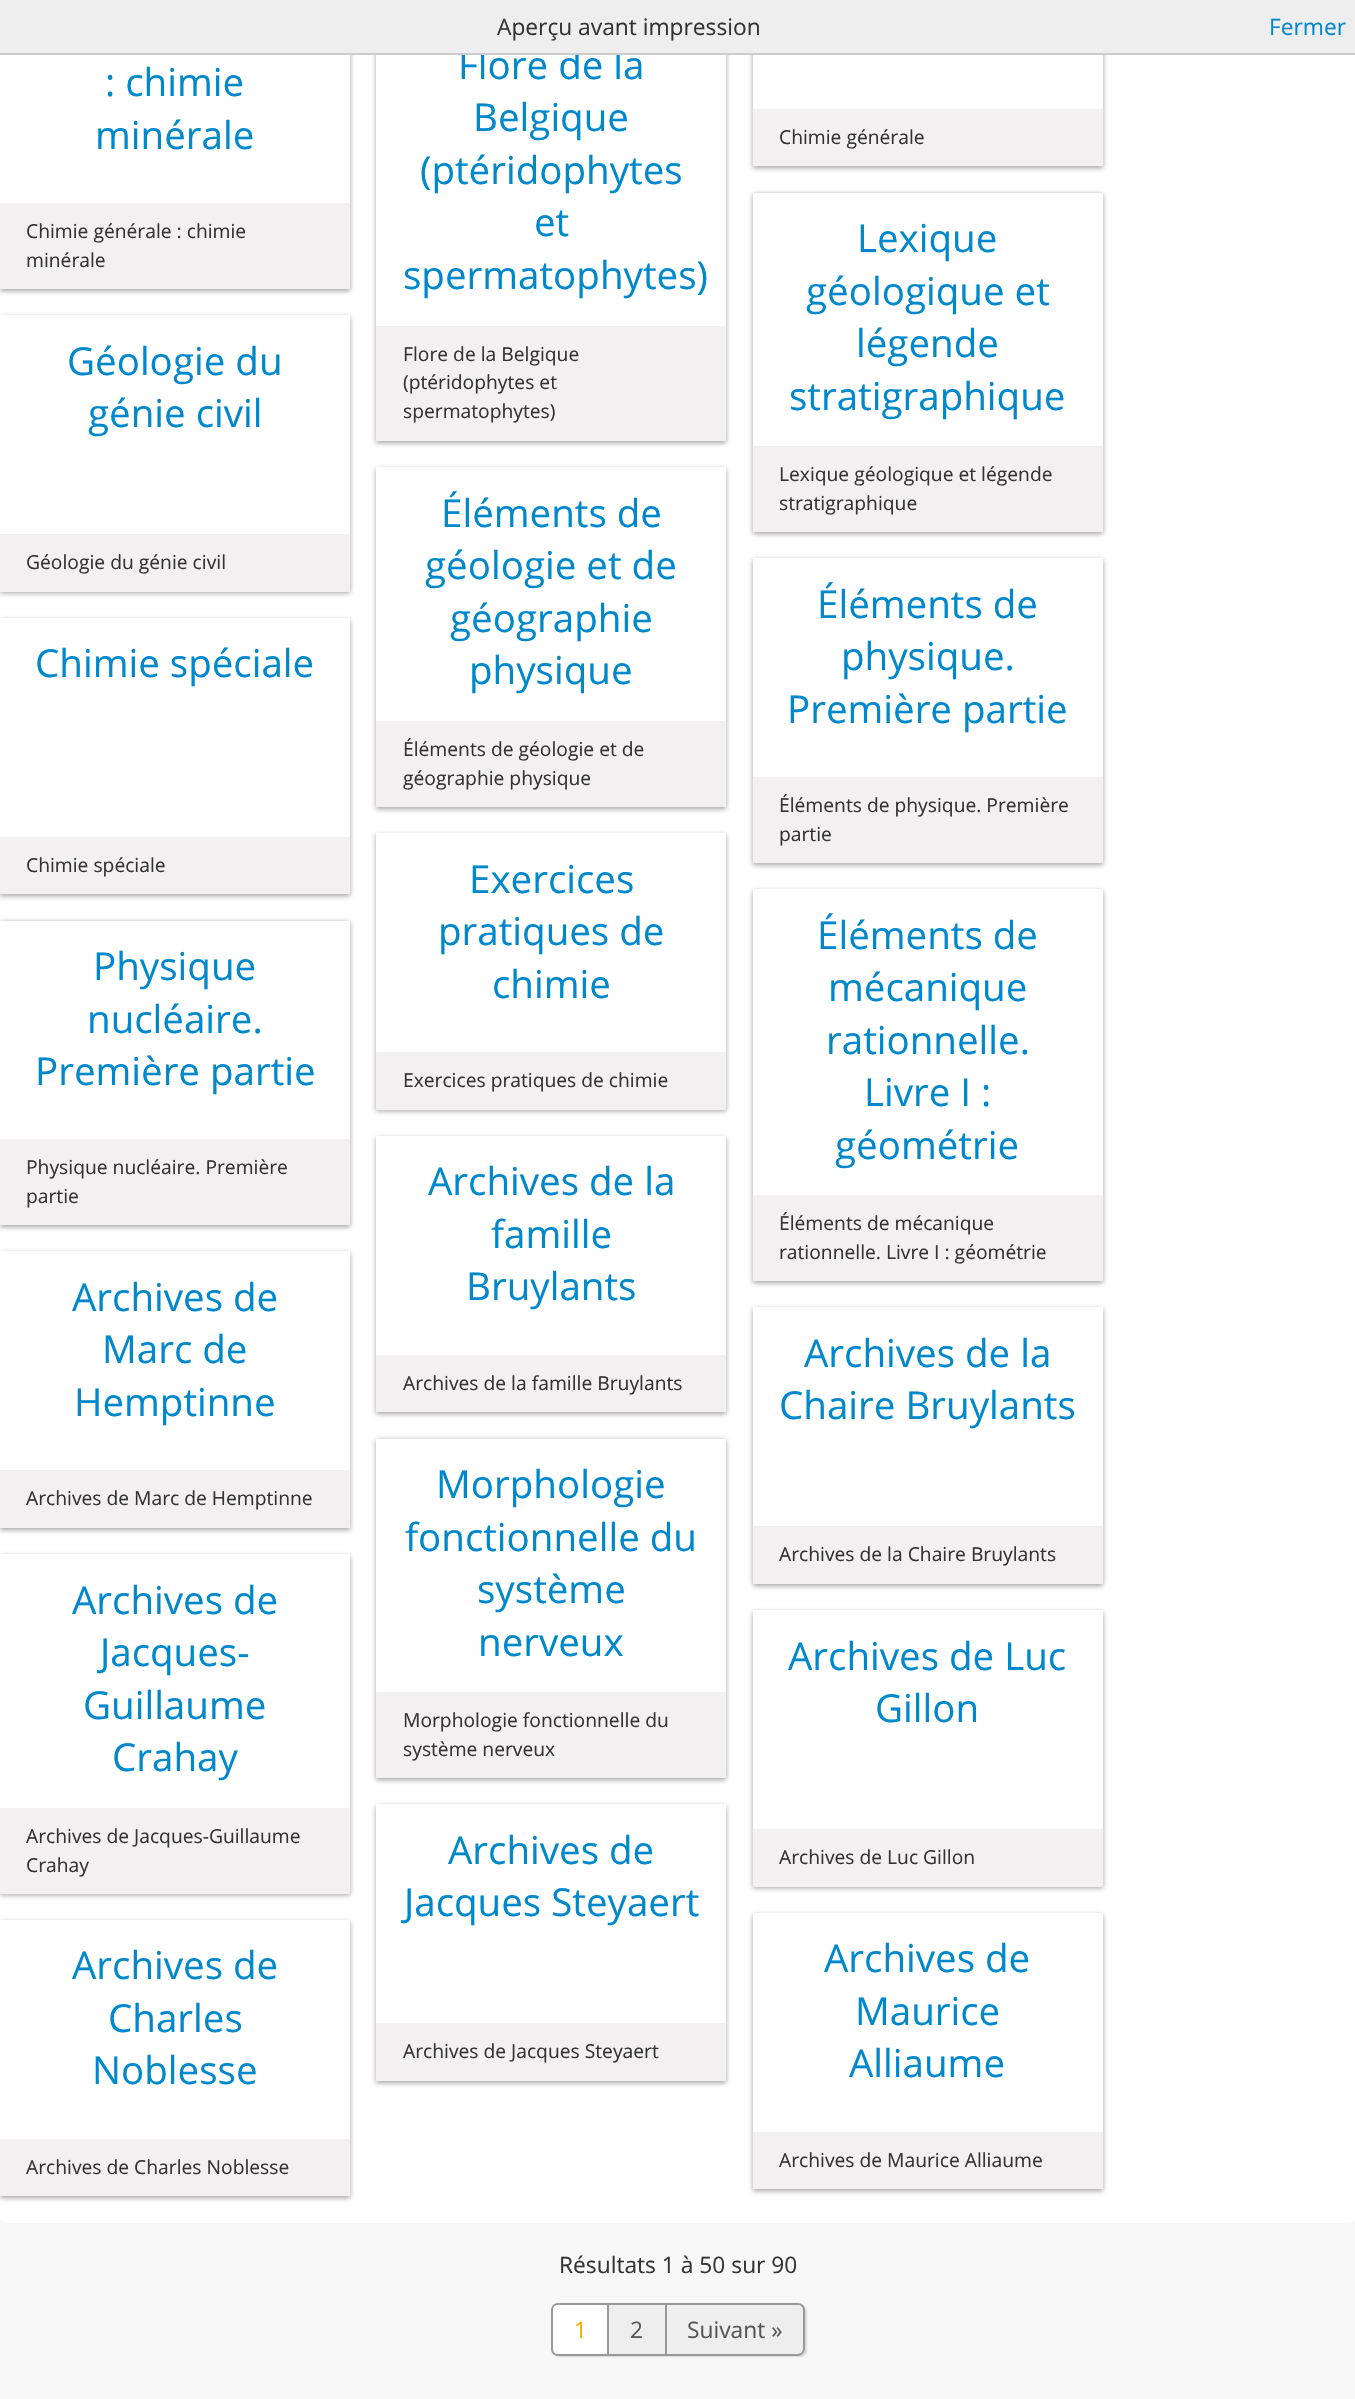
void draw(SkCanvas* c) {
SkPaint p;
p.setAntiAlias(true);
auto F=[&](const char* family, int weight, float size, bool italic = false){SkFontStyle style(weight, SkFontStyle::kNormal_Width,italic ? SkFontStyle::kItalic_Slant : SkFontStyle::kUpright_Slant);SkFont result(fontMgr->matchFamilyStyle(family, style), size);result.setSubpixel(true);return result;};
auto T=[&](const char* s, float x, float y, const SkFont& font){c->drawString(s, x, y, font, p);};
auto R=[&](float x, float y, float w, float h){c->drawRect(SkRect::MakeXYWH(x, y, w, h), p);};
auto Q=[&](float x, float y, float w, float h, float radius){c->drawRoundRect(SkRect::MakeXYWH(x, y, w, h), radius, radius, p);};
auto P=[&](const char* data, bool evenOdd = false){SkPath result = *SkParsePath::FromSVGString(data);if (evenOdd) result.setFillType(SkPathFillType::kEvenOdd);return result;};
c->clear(0xfff8f8f8);
p.setColor(0xffffffff);
Q(0,-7,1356,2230,7);
p.setColor(0x66191919);
p.setMaskFilter(SkMaskFilter::MakeBlur(kNormal_SkBlurStyle, 2.5));
c->drawRect(SkRect::MakeXYWH(0,-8,350,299),p);
p.setMaskFilter(nullptr);
p.setMaskFilter(SkMaskFilter::MakeBlur(kNormal_SkBlurStyle, 2.5));
c->drawRect(SkRect::MakeXYWH(376,21,350,422),p);
p.setMaskFilter(nullptr);
p.setColor(0xffffffff);
R(376,55,350,271);
auto f1 = F("Open Sans",400,38.5);
p.setColor(0xff0088cc);
T("Flore de la",458,79,f1);
p.setColor(0x66191919);
p.setMaskFilter(SkMaskFilter::MakeBlur(kNormal_SkBlurStyle, 2.5));
c->drawRect(SkRect::MakeXYWH(753,-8,350,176),p);
p.setMaskFilter(nullptr);
p.setColor(0xffeeeeee);
R(0,0,1355,53);
p.setColor(0xffcccccc);
R(0,53,1355,2);
auto f2 = F("Open Sans",400,22.75);
p.setColor(0xff333333);
T("Aperçu avant impression",497,35,f2);
p.setColor(0xff0088cc);
T("Fermer",1269,35,f2);
p.setColor(0xffffffff);
R(0,55,350,148);
p.setColor(0xff0088cc);
T(": chimie",105,96,f1);
T("minérale",95,149,f1);
p.setColor(0xfff2f0f0);
R(0,203,350,86);
auto f3 = F("Open Sans",400,19.25);
p.setColor(0xff333333);
T("Chimie générale : chimie",26,238,f3);
T("minérale",26,267,f3);
p.setColor(0xff0088cc);
T("Belgique",473,131,f1);
T("(ptéridophytes",420,184,f1);
T("et",534,236,f1);
T("spermatophytes)",403,289,f1);
p.setColor(0xfff2f0f0);
R(376,326,350,115);
p.setColor(0xff333333);
T("Flore de la Belgique",403,361,f3);
T("(ptéridophytes et",403,389,f3);
T("spermatophytes)",403,418,f3);
p.setColor(0xffffffff);
R(753,55,350,54);
p.setColor(0xfff2f0f0);
R(753,109,350,57);
p.setColor(0xff333333);
T("Chimie générale",779,144,f3);
p.setColor(0x66191919);
p.setMaskFilter(SkMaskFilter::MakeBlur(kNormal_SkBlurStyle, 2.5));
c->drawRect(SkRect::MakeXYWH(0,317,350,276),p);
p.setMaskFilter(nullptr);
p.setColor(0xffffffff);
R(0,315,350,219);
p.setColor(0xff0088cc);
T("Géologie du",67,375,f1);
T("génie civil",88,427,f1);
p.setColor(0xfff2f0f0);
R(0,534,350,58);
p.setColor(0xff333333);
T("Géologie du génie civil",26,569,f3);
p.setColor(0x66191919);
p.setMaskFilter(SkMaskFilter::MakeBlur(kNormal_SkBlurStyle, 2.5));
c->drawRect(SkRect::MakeXYWH(753,194,350,340),p);
p.setMaskFilter(nullptr);
p.setColor(0xffffffff);
R(753,193,350,253);
p.setColor(0xff0088cc);
T("Lexique",857,252,f1);
T("géologique et",806,305,f1);
T("légende",856,357,f1);
T("stratigraphique",789,410,f1);
p.setColor(0xfff2f0f0);
R(753,446,350,86);
p.setColor(0xff333333);
T("Lexique géologique et légende",779,481,f3);
T("stratigraphique",779,510,f3);
c->save();
c->clipPath(P("M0 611h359v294h-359zm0 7h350v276h-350z",true),true);
p.setColor(0x66191919);
p.setMaskFilter(SkMaskFilter::MakeBlur(kNormal_SkBlurStyle, 2.5));
c->drawRect(SkRect::MakeXYWH(0,620,350,276),p);
p.setMaskFilter(nullptr);
c->restore();
p.setColor(0xff0088cc);
T("Chimie spéciale",35,677,f1);
p.setColor(0xfff2f0f0);
R(0,837,350,57);
p.setColor(0xff333333);
T("Chimie spéciale",26,872,f3);
p.setColor(0x66191919);
p.setMaskFilter(SkMaskFilter::MakeBlur(kNormal_SkBlurStyle, 2.5));
c->drawRect(SkRect::MakeXYWH(376,469,350,340),p);
p.setMaskFilter(nullptr);
p.setColor(0xffffffff);
R(376,467,350,254);
p.setColor(0xff0088cc);
T("Éléments de",441,527,f1);
T("géologie et de",425,579,f1);
T("géographie",450,632,f1);
T("physique",469,684,f1);
p.setColor(0xfff2f0f0);
R(376,721,350,86);
p.setColor(0xff333333);
T("Éléments de géologie et de",403,756,f3);
T("géographie physique",403,785,f3);
p.setColor(0x66191919);
p.setMaskFilter(SkMaskFilter::MakeBlur(kNormal_SkBlurStyle, 2.5));
c->drawRect(SkRect::MakeXYWH(753,560,350,305),p);
p.setMaskFilter(nullptr);
p.setColor(0xffffffff);
R(753,558,350,219);
p.setColor(0xff0088cc);
T("Éléments de",817,618,f1);
T("physique.",841,670,f1);
T("Première partie",787,723,f1);
p.setColor(0xfff2f0f0);
R(753,777,350,86);
p.setColor(0xff333333);
T("Éléments de physique. Première",779,812,f3);
T("partie",779,841,f3);
c->save();
c->clipPath(P("M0 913h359v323h-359zm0 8h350v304h-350z",true),true);
p.setColor(0x66191919);
p.setMaskFilter(SkMaskFilter::MakeBlur(kNormal_SkBlurStyle, 2.5));
c->drawRect(SkRect::MakeXYWH(0,922,350,305),p);
p.setMaskFilter(nullptr);
c->restore();
p.setColor(0xff0088cc);
T("Physique",93,980,f1);
T("nucléaire.",87,1033,f1);
T("Première partie",35,1085,f1);
p.setColor(0xfff2f0f0);
R(0,1139,350,86);
p.setColor(0xff333333);
T("Physique nucléaire. Première",26,1174,f3);
T("partie",26,1203,f3);
p.setColor(0x66191919);
p.setMaskFilter(SkMaskFilter::MakeBlur(kNormal_SkBlurStyle, 2.5));
c->drawRect(SkRect::MakeXYWH(376,835,350,276),p);
p.setMaskFilter(nullptr);
p.setColor(0xffffffff);
R(376,833,350,219);
p.setColor(0xff0088cc);
T("Exercices",469,893,f1);
T("pratiques de",438,945,f1);
T("chimie",492,998,f1);
p.setColor(0xfff2f0f0);
R(376,1052,350,58);
p.setColor(0xff333333);
T("Exercices pratiques de chimie",403,1087,f3);
p.setColor(0x66191919);
p.setMaskFilter(SkMaskFilter::MakeBlur(kNormal_SkBlurStyle, 2.5));
c->drawRect(SkRect::MakeXYWH(753,891,350,392),p);
p.setMaskFilter(nullptr);
p.setColor(0xffffffff);
R(753,889,350,306);
p.setColor(0xff0088cc);
T("Éléments de",817,949,f1);
T("mécanique",828,1001,f1);
T("rationnelle.",826,1054,f1);
T("Livre I :",864,1106,f1);
T("géométrie",835,1159,f1);
p.setColor(0xfff2f0f0);
R(753,1195,350,86);
p.setColor(0xff333333);
T("Éléments de mécanique",779,1230,f3);
T("rationnelle. Livre I : géométrie",779,1259,f3);
p.setColor(0x66191919);
p.setMaskFilter(SkMaskFilter::MakeBlur(kNormal_SkBlurStyle, 2.5));
c->drawRect(SkRect::MakeXYWH(0,1253,350,277),p);
p.setMaskFilter(nullptr);
p.setColor(0xffffffff);
R(0,1251,350,219);
p.setColor(0xff0088cc);
T("Archives de",72,1311,f1);
T("Marc de",102,1363,f1);
T("Hemptinne",74,1416,f1);
p.setColor(0xfff2f0f0);
R(0,1470,350,58);
p.setColor(0xff333333);
T("Archives de Marc de Hemptinne",26,1505,f3);
p.setColor(0x66191919);
p.setMaskFilter(SkMaskFilter::MakeBlur(kNormal_SkBlurStyle, 2.5));
c->drawRect(SkRect::MakeXYWH(376,1138,350,276),p);
p.setMaskFilter(nullptr);
p.setColor(0xffffffff);
R(376,1136,350,219);
p.setColor(0xff0088cc);
T("Archives de la",428,1195,f1);
T("famille",491,1248,f1);
T("Bruylants",466,1300,f1);
p.setColor(0xfff2f0f0);
R(376,1355,350,57);
p.setColor(0xff333333);
T("Archives de la famille Bruylants",403,1390,f3);
p.setColor(0x66191919);
p.setMaskFilter(SkMaskFilter::MakeBlur(kNormal_SkBlurStyle, 2.5));
c->drawRect(SkRect::MakeXYWH(753,1309,350,277),p);
p.setMaskFilter(nullptr);
p.setColor(0xffffffff);
R(753,1307,350,219);
p.setColor(0xff0088cc);
T("Archives de la",804,1367,f1);
T("Chaire Bruylants",779,1419,f1);
p.setColor(0xfff2f0f0);
R(753,1526,350,58);
p.setColor(0xff333333);
T("Archives de la Chaire Bruylants",779,1561,f3);
p.setColor(0x66191919);
p.setMaskFilter(SkMaskFilter::MakeBlur(kNormal_SkBlurStyle, 2.5));
c->drawRect(SkRect::MakeXYWH(0,1556,350,339),p);
p.setMaskFilter(nullptr);
p.setColor(0xffffffff);
R(0,1554,350,254);
p.setColor(0xff0088cc);
T("Archives de",72,1614,f1);
T("Jacques-",100,1666,f1);
T("Guillaume",83,1719,f1);
T("Crahay",112,1771,f1);
p.setColor(0xfff2f0f0);
R(0,1808,350,86);
p.setColor(0xff333333);
T("Archives de Jacques-Guillaume",26,1843,f3);
T("Crahay",26,1872,f3);
p.setColor(0x66191919);
p.setMaskFilter(SkMaskFilter::MakeBlur(kNormal_SkBlurStyle, 2.5));
c->drawRect(SkRect::MakeXYWH(376,1440,350,340),p);
p.setMaskFilter(nullptr);
p.setColor(0xffffffff);
R(376,1439,350,253);
p.setColor(0xff0088cc);
T("Morphologie",436,1498,f1);
T("fonctionnelle du",405,1551,f1);
T("système",477,1603,f1);
T("nerveux",478,1656,f1);
p.setColor(0xfff2f0f0);
R(376,1692,350,86);
p.setColor(0xff333333);
T("Morphologie fonctionnelle du",403,1727,f3);
T("système nerveux",403,1756,f3);
p.setColor(0x66191919);
p.setMaskFilter(SkMaskFilter::MakeBlur(kNormal_SkBlurStyle, 2.5));
c->drawRect(SkRect::MakeXYWH(753,1612,350,276),p);
p.setMaskFilter(nullptr);
p.setColor(0xffffffff);
R(753,1610,350,219);
p.setColor(0xff0088cc);
T("Archives de Luc",788,1670,f1);
T("Gillon",875,1722,f1);
p.setColor(0xfff2f0f0);
R(753,1829,350,58);
p.setColor(0xff333333);
T("Archives de Luc Gillon",779,1864,f3);
c->save();
c->clipPath(P("M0 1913h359v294h-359zm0 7h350v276h-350z",true),true);
p.setColor(0x66191919);
p.setMaskFilter(SkMaskFilter::MakeBlur(kNormal_SkBlurStyle, 2.5));
c->drawRect(SkRect::MakeXYWH(0,1922,350,276),p);
p.setMaskFilter(nullptr);
c->restore();
p.setColor(0xff0088cc);
T("Archives de",72,1979,f1);
T("Charles",108,2032,f1);
T("Noblesse",92,2084,f1);
p.setColor(0xfff2f0f0);
R(0,2139,350,57);
p.setColor(0xff333333);
T("Archives de Charles Noblesse",26,2174,f3);
p.setColor(0x66191919);
p.setMaskFilter(SkMaskFilter::MakeBlur(kNormal_SkBlurStyle, 2.5));
c->drawRect(SkRect::MakeXYWH(376,1806,350,277),p);
p.setMaskFilter(nullptr);
p.setColor(0xffffffff);
R(376,1804,350,219);
p.setColor(0xff0088cc);
T("Archives de",448,1864,f1);
T("Jacques Steyaert",404,1916,f1);
p.setColor(0xfff2f0f0);
R(376,2023,350,58);
p.setColor(0xff333333);
T("Archives de Jacques Steyaert",403,2058,f3);
p.setColor(0x66191919);
p.setMaskFilter(SkMaskFilter::MakeBlur(kNormal_SkBlurStyle, 2.5));
c->drawRect(SkRect::MakeXYWH(753,1915,350,276),p);
p.setMaskFilter(nullptr);
p.setColor(0xffffffff);
R(753,1913,350,219);
p.setColor(0xff0088cc);
T("Archives de",824,1972,f1);
T("Maurice",855,2025,f1);
T("Alliaume",849,2077,f1);
p.setColor(0xfff2f0f0);
R(753,2132,350,57);
p.setColor(0xff333333);
T("Archives de Maurice Alliaume",779,2167,f3);
T("Résultats 1 à 50 sur 90",559,2273,f2);
p.setColor(0x26191919);
p.setMaskFilter(SkMaskFilter::MakeBlur(kNormal_SkBlurStyle, 1));
c->drawRoundRect(SkRect::MakeXYWH(553,2305,254,52),7,7,p);
p.setMaskFilter(nullptr);
p.setColor(0xffffffff);
c->drawPath(P("M558 2304h50v51h-50c-3.5 0-6-2.5-6-6v-39c0-3.5 2.5-6 6-6z"),p);
p.setStroke(true);
p.setStrokeWidth(2);
p.setColor(0xff999999);
c->drawPath(P("M558 2304h50v51h-50c-3.5 0-6-2.5-6-6v-39c0-3.5 2.5-6 6-6z"),p);
p.setStroke(false);
p.setColor(0xfff6ac00);
T("1",574,2338,f2);
p.setColor(0xffeeeeee);
R(609,2305,56,49);
p.setColor(0xff999999);
R(609,2303,58,2);
R(665,2303,2,53);
R(609,2354,58,2);
p.setColor(0xff555555);
T("2",630,2338,f2);
p.setColor(0xffeeeeee);
c->drawPath(P("M667 2305h131c3 0 5 2 5 5v39c0 3-2 5-5 5h-131z"),p);
p.setColor(0xff999999);
c->drawPath(P("M667 2303h131c4 0 7 3 7 7v38c0 4-3 8-7 8h-131zm0 2h131c3 0 5 2 5 5v38c0 3-2 6-5 6h-131z",true),p);
p.setColor(0xff555555);
T("Suivant »",687,2338,f2);
}
